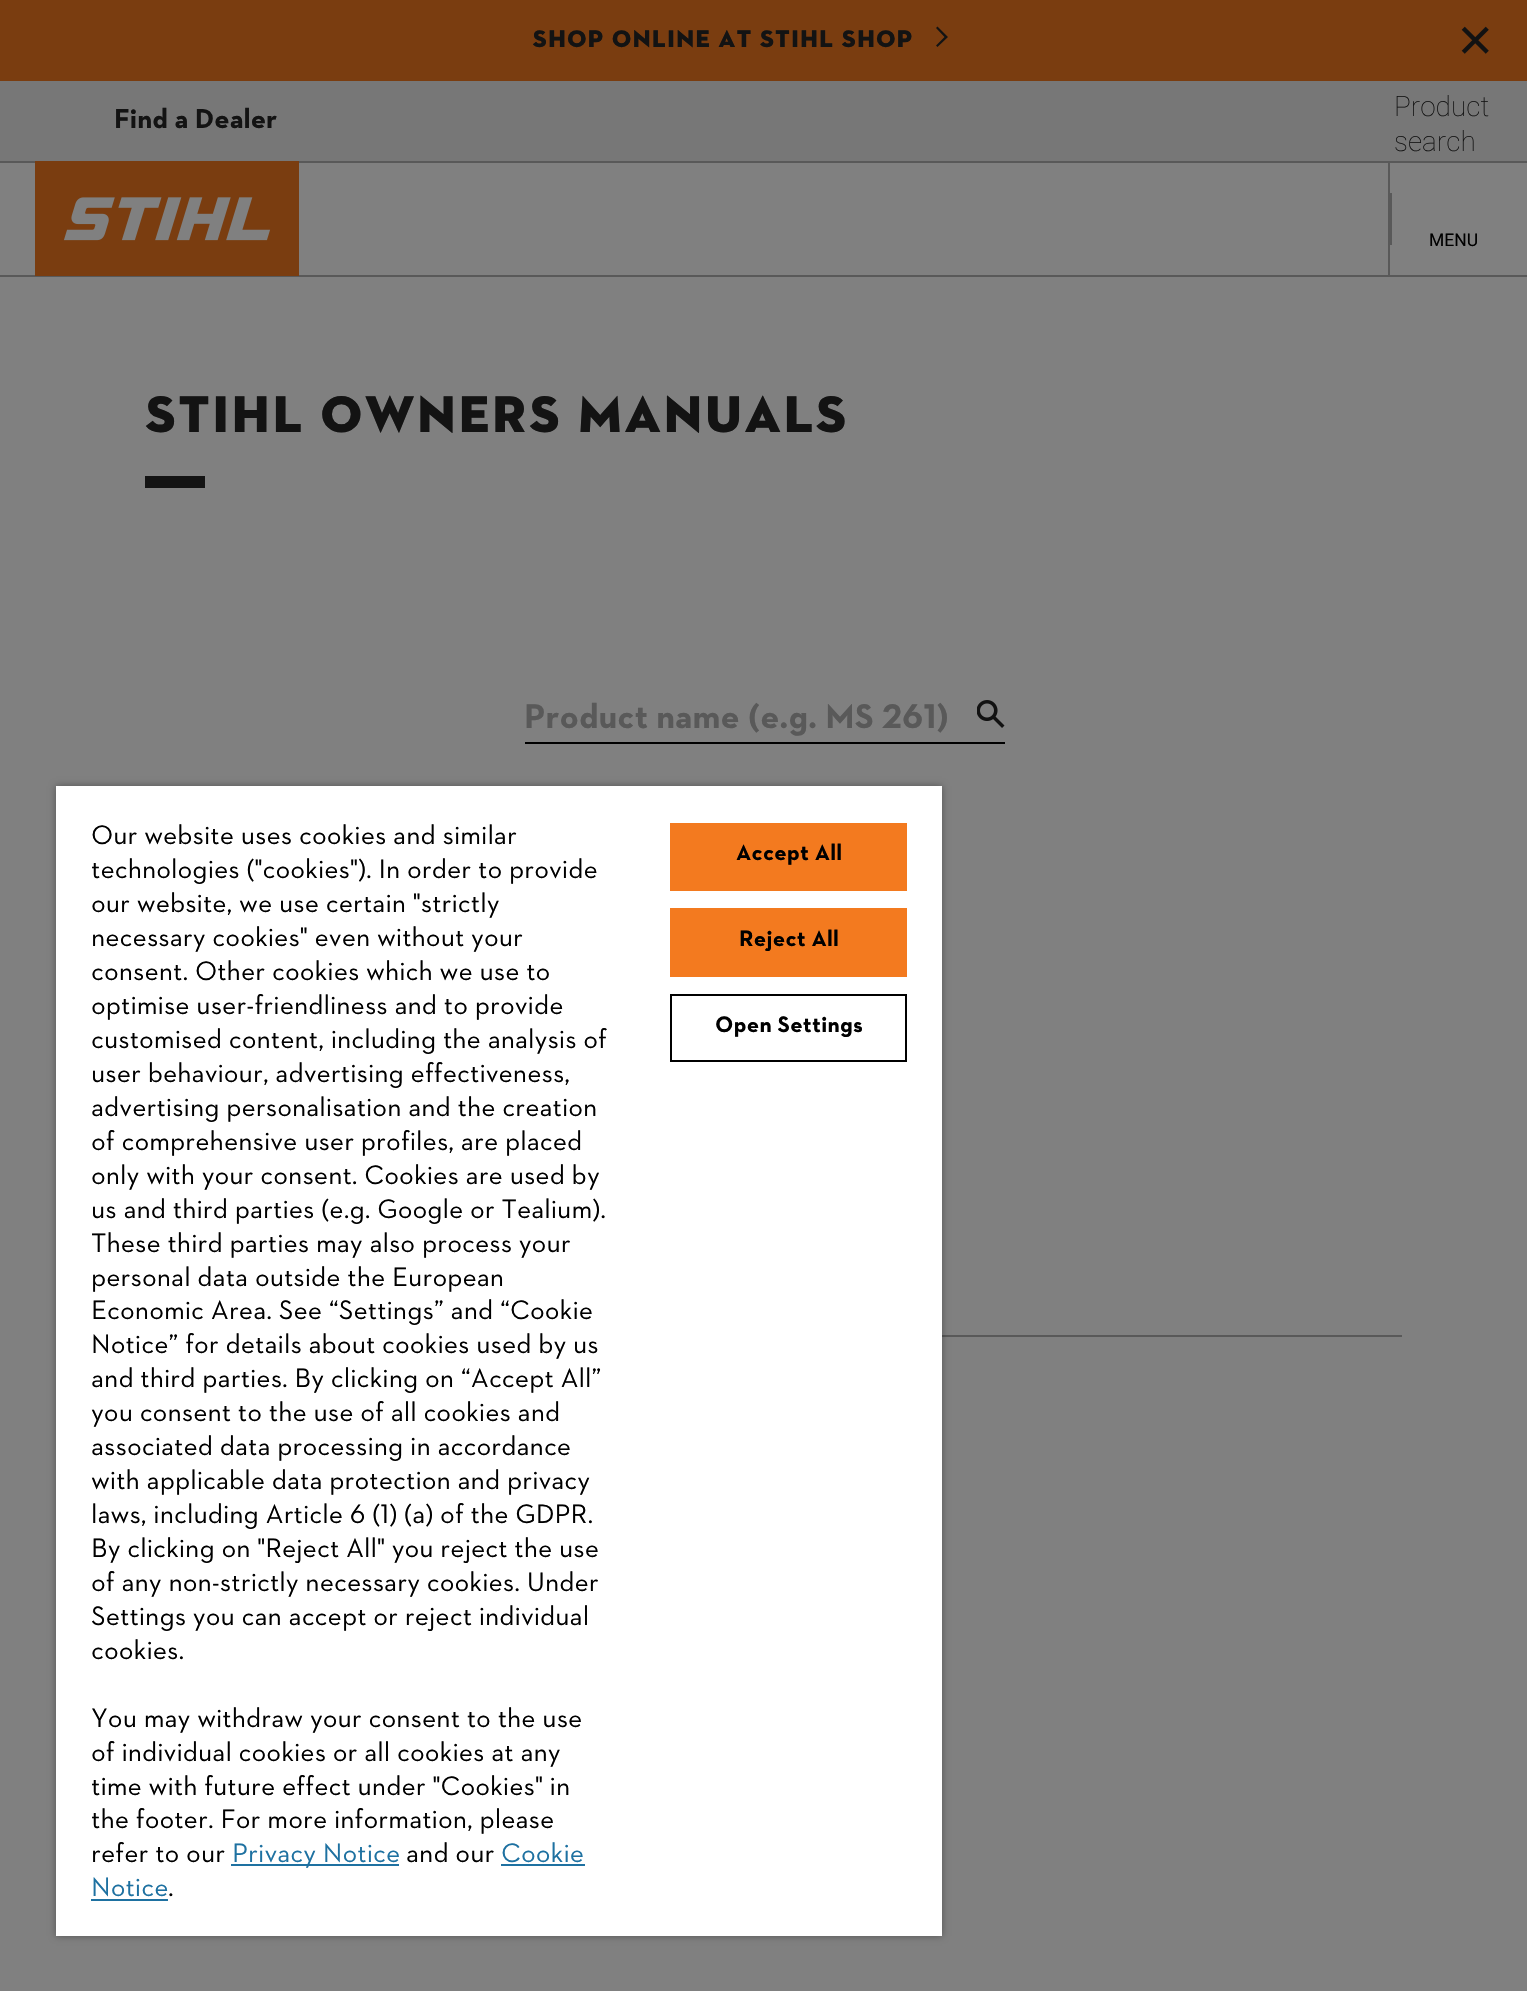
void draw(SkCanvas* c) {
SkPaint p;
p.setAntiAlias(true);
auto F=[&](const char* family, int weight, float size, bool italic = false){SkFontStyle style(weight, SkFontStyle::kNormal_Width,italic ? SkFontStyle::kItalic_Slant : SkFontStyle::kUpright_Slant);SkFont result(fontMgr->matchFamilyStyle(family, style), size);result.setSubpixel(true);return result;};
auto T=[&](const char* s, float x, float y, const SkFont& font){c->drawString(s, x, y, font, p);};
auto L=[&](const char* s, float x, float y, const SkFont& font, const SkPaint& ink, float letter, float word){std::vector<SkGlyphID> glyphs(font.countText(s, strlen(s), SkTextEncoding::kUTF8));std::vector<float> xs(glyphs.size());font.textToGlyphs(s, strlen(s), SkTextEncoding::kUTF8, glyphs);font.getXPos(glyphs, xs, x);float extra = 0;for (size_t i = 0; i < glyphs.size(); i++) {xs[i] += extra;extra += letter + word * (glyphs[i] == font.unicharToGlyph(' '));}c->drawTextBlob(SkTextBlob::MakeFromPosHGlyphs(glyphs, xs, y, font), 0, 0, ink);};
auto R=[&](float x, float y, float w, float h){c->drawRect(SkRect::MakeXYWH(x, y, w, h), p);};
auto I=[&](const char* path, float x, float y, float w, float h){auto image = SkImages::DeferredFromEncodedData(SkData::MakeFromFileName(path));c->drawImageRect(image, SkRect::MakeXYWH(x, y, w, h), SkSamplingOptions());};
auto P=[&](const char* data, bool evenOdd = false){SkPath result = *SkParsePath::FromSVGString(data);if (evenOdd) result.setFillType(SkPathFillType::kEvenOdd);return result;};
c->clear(0xff808080);
p.setColor(0xff7a3d10);
R(0,0,1527,81);
auto f1 = F("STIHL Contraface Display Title",900,24.5);
p.setColor(0xff131313);
T("SHOP ONLINE AT STIHL SHOP",532,47,f1);
c->drawPath(P("M937.5 47l-1.5-1.5l8.5-8.5l-8.5-9l1.5-1.5l10.5 10.5z"),p);
I("1.png",1461,26,28,28);
p.setColor(0xff777777);
R(0,81,1527,80);
auto f2 = F("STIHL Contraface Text",700,28);
p.setColor(0xff131313);
T("Find a Dealer",114,128,f2);
auto f3 = F("Roboto",100,28);
T("Product",1394,116,f3);
T("search",1394,151,f3);
p.setColor(0xff595959);
R(299,161,1228,2);
R(0,275,1527,2);
R(0,161,35,2);
I("2.png",35,161,264,115);
R(1388,163,2,112);
R(1390,193,2,52);
auto f4 = F("Roboto",400,17.5);
p.setColor(0xff000000);
T("MENU",1429,246,f4);
auto f5 = F("STIHL Contraface Display Title",900,52.5);
p.setColor(0xff131313);
T("STIHL OWNERS MANUALS",144,432,f5);
R(145,476,60,12);
p.setColor(0xff000000);
R(525,742,480,2);
auto f6 = F("STIHL Contraface Text",700,35);
p.setColor(0xff595959);
T("Product name (e.g. MS 261)",524,728,f6);
I("3.png",977,700,28,28);
R(942,1335,460,2);
p.setColor(0x59000000);
p.setMaskFilter(SkMaskFilter::MakeBlur(kNormal_SkBlurStyle, 3.5));
c->drawRect(SkRect::MakeXYWH(56,786,886,1150),p);
p.setMaskFilter(nullptr);
p.setColor(0xffffffff);
R(56,786,886,1150);
auto f7 = F("STIHL Contraface Text",400,27.2);
p.setColor(0xff000000);
T("Our website uses cookies and similar",91,844,f7);
T("technologies (\"cookies\"). In order to provide",91,878,f7);
T("our website, we use certain \"strictly",91,912,f7);
T("necessary cookies\" even without your",91,946,f7);
T("consent. Other cookies which we use to",91,980,f7);
T("optimise user-friendliness and to provide",91,1014,f7);
T("customised content, including the analysis of",91,1048,f7);
T("user behaviour, advertising effectiveness,",91,1082,f7);
T("advertising personalisation and the creation",91,1116,f7);
T("of comprehensive user profiles, are placed",91,1150,f7);
T("only with your consent. Cookies are used by",91,1184,f7);
T("us and third parties (e.g. Google or Tealium).",91,1218,f7);
T("These third parties may also process your",91,1252,f7);
T("personal data outside the European",91,1286,f7);
T("Economic Area. See “Settings” and “Cookie",91,1319,f7);
T("Notice” for details about cookies used by us",91,1353,f7);
T("and third parties. By clicking on “Accept All”",91,1387,f7);
T("you consent to the use of all cookies and",91,1421,f7);
T("associated data processing in accordance",91,1455,f7);
T("with applicable data protection and privacy",91,1489,f7);
T("laws, including Article 6 (1) (a) of the GDPR.",91,1523,f7);
T("By clicking on \"Reject All\" you reject the use",91,1557,f7);
T("of any non-strictly necessary cookies. Under",91,1591,f7);
T("Settings you can accept or reject individual",91,1625,f7);
T("cookies.",91,1659,f7);
T("You may withdraw your consent to the use",91,1727,f7);
T("of individual cookies or all cookies at any",91,1761,f7);
T("time with future effect under \"Cookies\" in",91,1795,f7);
T("the footer. For more information, please",91,1828,f7);
T("refer to our",91,1862,f7);
p.setColor(0xff1e71a1);
R(231,1864,168,2);
T("Privacy Notice",232,1862,f7);
p.setColor(0xff000000);
T("and our",406,1862,f7);
p.setColor(0xff1e71a1);
T("Cookie",501,1862,f7);
R(501,1864,84,2);
T("Notice",91,1896,f7);
R(91,1899,77,2);
p.setColor(0xff000000);
T(".",168,1896,f7);
p.setColor(0xfff37a1f);
R(670,823,237,68);
auto f8 = F("STIHL Contraface Text",700,22.75);
p.setColor(0xff000000);
L("Accept All",736,860,f8,p,.25,0);
p.setColor(0xfff37a1f);
R(670,908,237,69);
p.setColor(0xff000000);
L("Reject All",739,946,f8,p,.25,0);
p.setStroke(true);
p.setStrokeWidth(2);
c->drawRect(SkRect::MakeXYWH(671,995,235,66),p);
p.setStroke(false);
L("Open Settings",715,1032,f8,p,.25,0);
}
